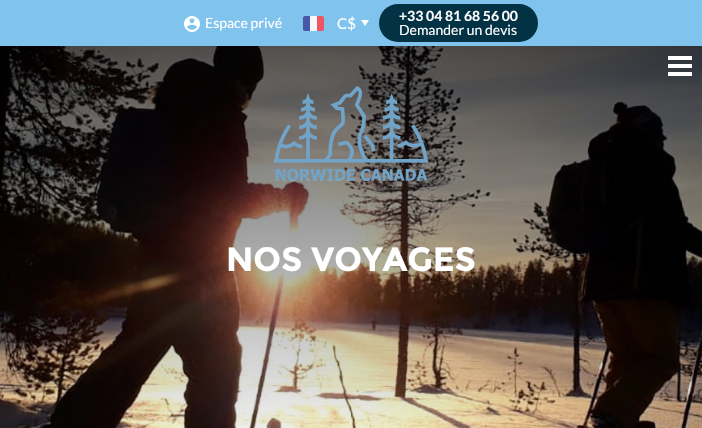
void draw(SkCanvas* c) {
SkPaint p;
p.setAntiAlias(true);
auto F=[&](const char* family, int weight, float size, bool italic = false){SkFontStyle style(weight, SkFontStyle::kNormal_Width,italic ? SkFontStyle::kItalic_Slant : SkFontStyle::kUpright_Slant);SkFont result(fontMgr->matchFamilyStyle(family, style), size);result.setSubpixel(true);return result;};
auto T=[&](const char* s, float x, float y, const SkFont& font){c->drawString(s, x, y, font, p);};
auto R=[&](float x, float y, float w, float h){c->drawRect(SkRect::MakeXYWH(x, y, w, h), p);};
auto Q=[&](float x, float y, float w, float h, float radius){c->drawRoundRect(SkRect::MakeXYWH(x, y, w, h), radius, radius, p);};
auto I=[&](const char* path, float x, float y, float w, float h){auto image = SkImages::DeferredFromEncodedData(SkData::MakeFromFileName(path));c->drawImageRect(image, SkRect::MakeXYWH(x, y, w, h), SkSamplingOptions());};
auto P=[&](const char* data, bool evenOdd = false){SkPath result = *SkParsePath::FromSVGString(data);if (evenOdd) result.setFillType(SkPathFillType::kEvenOdd);return result;};
c->clear(0xffffffff);
p.setColor(0xff80c4ed);
R(0,0,702,46);
I("1.png",184,16,16,16);
auto f1 = F("Lato",400,14);
p.setColor(0xffffffff);
T("Espace privé",205,28,f1);
I("2.png",303,16,21,15);
auto f2 = F("Lato",400,15);
T("C$",337,29,f2);
c->drawPath(P("M361 20h8l-4 6z"),p);
p.setColor(0xff033244);
Q(379,4,159,38,19);
auto f3 = F("Lato",700,14);
p.setColor(0xffffffff);
T("+33 04 81 68 56 00",399,21,f3);
T("Demander un devis",399,35,f1);
I("3.png",0,46,702,382);
R(668,56,24,4);
R(668,72,24,4);
R(668,64,24,4);
I("4.png",274,86,154,95);
auto f4 = F("Montserrat",700,33.5);
T("NOS VOYAGES",226,271,f4);
}
